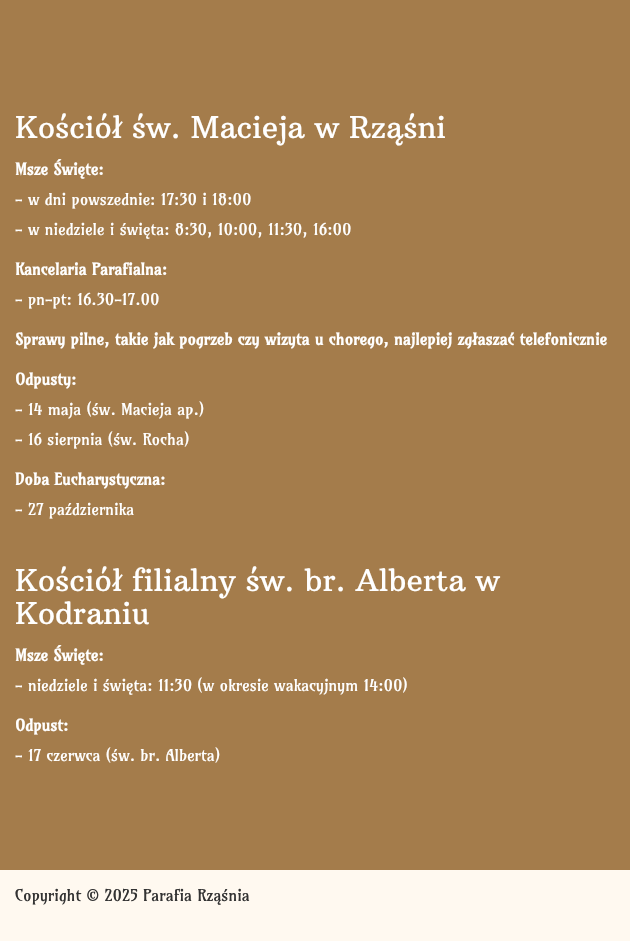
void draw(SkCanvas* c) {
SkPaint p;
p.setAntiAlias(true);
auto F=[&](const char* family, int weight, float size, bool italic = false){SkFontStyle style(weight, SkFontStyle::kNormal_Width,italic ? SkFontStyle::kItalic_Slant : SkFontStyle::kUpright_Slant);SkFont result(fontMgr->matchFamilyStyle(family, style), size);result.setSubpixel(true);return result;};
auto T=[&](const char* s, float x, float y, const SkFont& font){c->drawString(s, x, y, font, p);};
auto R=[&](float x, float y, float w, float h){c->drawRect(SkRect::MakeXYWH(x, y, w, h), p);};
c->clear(0xfffff9f0);
p.setColor(0xffa47c4b);
R(0,0,630,870);
auto f1 = F("Arbutus Slab",400,30);
p.setColor(0xffffffff);
T("Kościół św. Macieja w Rząśni",15,138,f1);
auto f2 = F("Amarante",700,16);
T("Msze Święte:",15,175,f2);
auto f3 = F("Amarante",400,16);
T("- w dni powszednie: 17:30 i 18:00",15,205,f3);
T("- w niedziele i święta: 8:30, 10:00, 11:30, 16:00",15,235,f3);
T("Kancelaria Parafialna:",15,275,f2);
T("- pn-pt: 16.30-17.00",15,305,f3);
T("Sprawy pilne, takie jak pogrzeb czy wizyta u chorego, najlepiej zgłaszać telefonicznie",15,345,f2);
T("Odpusty:",15,385,f2);
T("- 14 maja (św. Macieja ap.)",15,415,f3);
T("- 16 sierpnia (św. Rocha)",15,445,f3);
T("Doba Eucharystyczna:",15,485,f2);
T("- 27 października",15,515,f3);
T("Kościół filialny św. br. Alberta w",15,591,f1);
T("Kodraniu",15,624,f1);
T("Msze Święte:",15,661,f2);
T("- niedziele i święta: 11:30 (w okresie wakacyjnym 14:00)",15,691,f3);
T("Odpust:",15,731,f2);
T("- 17 czerwca (św. br. Alberta)",15,761,f3);
p.setColor(0xff333333);
T("Copyright © 2025 Parafia Rząśnia",15,901,f3);
}
